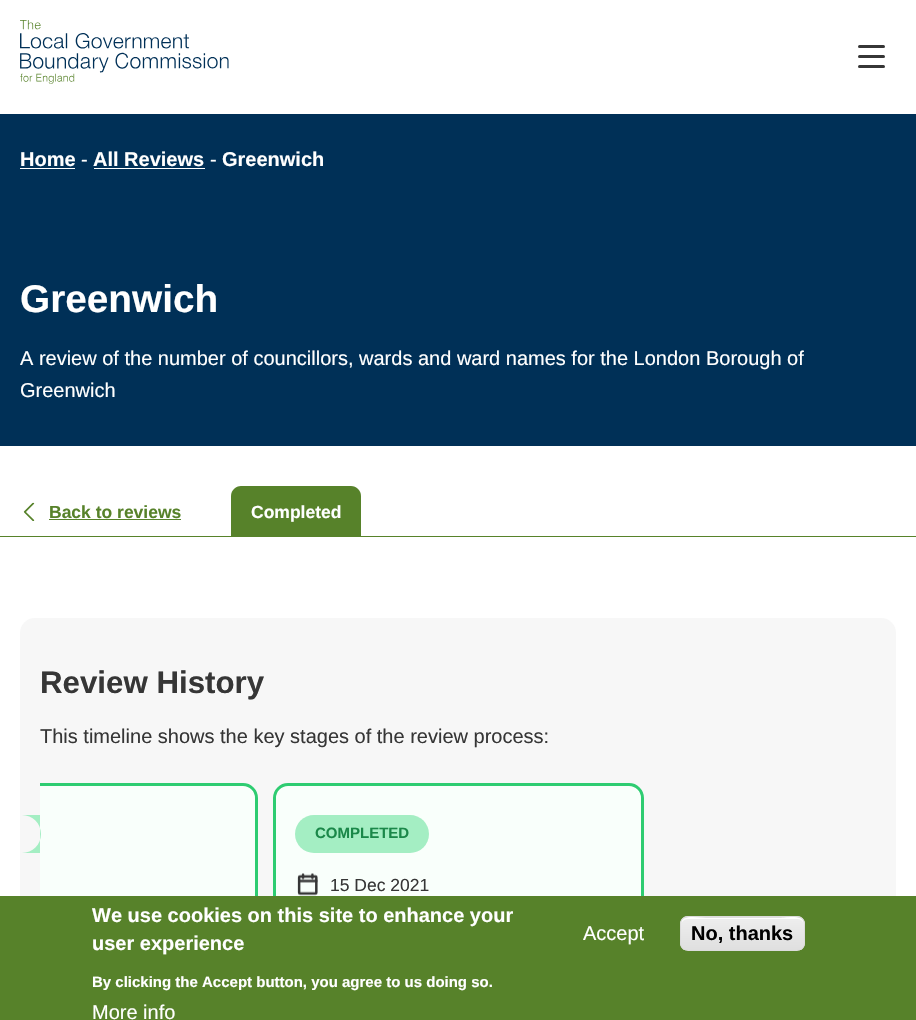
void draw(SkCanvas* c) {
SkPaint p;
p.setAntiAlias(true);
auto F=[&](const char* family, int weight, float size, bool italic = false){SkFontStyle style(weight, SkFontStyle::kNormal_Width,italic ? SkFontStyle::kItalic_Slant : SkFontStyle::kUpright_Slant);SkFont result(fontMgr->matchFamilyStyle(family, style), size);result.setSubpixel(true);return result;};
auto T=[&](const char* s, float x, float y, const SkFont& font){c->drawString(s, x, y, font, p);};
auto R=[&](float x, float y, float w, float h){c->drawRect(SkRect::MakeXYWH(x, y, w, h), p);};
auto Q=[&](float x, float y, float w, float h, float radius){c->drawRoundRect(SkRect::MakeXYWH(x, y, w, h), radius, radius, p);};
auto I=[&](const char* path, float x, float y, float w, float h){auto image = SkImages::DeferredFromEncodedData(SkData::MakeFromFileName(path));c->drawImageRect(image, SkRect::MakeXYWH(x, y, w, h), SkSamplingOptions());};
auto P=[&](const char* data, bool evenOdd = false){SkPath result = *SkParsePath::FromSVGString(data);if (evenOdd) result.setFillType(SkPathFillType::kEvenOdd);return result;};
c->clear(0xffffffff);
I("1.png",20,20,209,64);
p.setColor(0xff363636);
Q(858,45,27,3,1.5);
Q(858,55,27,3,1.5);
Q(858,65,27,3,1.5);
p.setColor(0xff003057);
R(0,114,916,332);
auto f1 = F("Liberation Sans",700,20);
p.setColor(0xffffffff);
T("Home",20,166,f1);
R(20,168,55,1);
auto f2 = F("Liberation Sans",400,20);
T("-",81,166,f2);
T("All Reviews",93,166,f1);
R(94,168,111,1);
T("-",210,166,f2);
T("Greenwich",222,166,f1);
auto f3 = F("Liberation Sans",700,38.75);
T("Greenwich",20,312,f3);
T("A review of the number of councillors, wards and ward names for the London Borough of",20,365,f2);
T("Greenwich",20,397,f2);
p.setColor(0xff57822a);
R(0,536,916,1);
I("2.png",23,502,12,19);
auto f4 = F("Liberation Sans",700,17.5);
T("Back to reviews",49,518,f4);
R(49,519,132,1);
c->drawPath(P("M241 486h110c5.5 0 10 4.5 10 10v40h-130v-40c0-5.5 4.5-10 10-10z"),p);
p.setColor(0xffffffff);
T("Completed",251,518,f4);
p.setColor(0xfff7f7f7);
Q(20,618,876,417,15);
auto f5 = F("Liberation Sans",700,31.25);
p.setColor(0xff363636);
T("Review History",40,693,f5);
T("This timeline shows the key stages of the review process:",40,743,f2);
p.setColor(0xfff9fffb);
c->drawPath(P("M40 783h203c8.5 0 15 6.5 15 15v222c0 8.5-6.5 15-15 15h-203z"),p);
c->save();
c->clipRect(SkRect::MakeXYWH(40,783,836,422));
p.setStroke(true);
p.setStrokeWidth(3);
p.setColor(0xff2ecc71);
c->drawRoundRect(SkRect::MakeXYWH(-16.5,784.5,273,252),13.5,13.5,p);
c->restore();
p.setStroke(false);
p.setColor(0xffa4eec3);
c->drawPath(P("M40 815h-18c10.5 0 19 8.5 19 19c0 10.5-8.5 19-19 19h18z"),p);
p.setColor(0xfff9fffb);
c->drawRoundRect(SkRect::MakeXYWH(274.5,784.5,368,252),13.5,13.5,p);
p.setStroke(true);
p.setColor(0xff2ecc71);
c->drawRoundRect(SkRect::MakeXYWH(274.5,784.5,368,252),13.5,13.5,p);
p.setStroke(false);
p.setColor(0xffa4eec3);
Q(295,815,134,38,19);
auto f6 = F("Liberation Sans",700,15);
p.setColor(0xff1a8849);
T("COMPLETED",315,838,f6);
I("3.png",297,873,21,23);
auto f7 = F("Liberation Sans",400,17.5);
p.setColor(0xff363636);
T("15 Dec 2021",330,891,f7);
p.setColor(0xff57822a);
R(0,896,916,124);
p.setColor(0xffffffff);
T("We use cookies on this site to enhance your",92,922,f1);
T("user experience",92,950,f1);
T("By clicking the Accept button, you agree to us doing so.",92,987,f6);
T("More info",92,1019,f2);
T("Accept",583,940,f2);
c->save();
c->clipPath(P("M688 916h109c4.5 0 8 3.5 8 8v19c0 4.5-3.5 8-8 8h-109c-4.5 0-8-3.5-8-8v-19c0-4.5 3.5-8 8-8z"),true);
{
const SkColor colors[] = {0xffededed,0xffdfdfdf};
const float stops[] = {.05,1};
const SkPoint ends[] = {{743,885}, {743,918}};
p.setShader(SkGradientShader::MakeLinear(ends, colors, stops, 2, SkTileMode::kClamp));
p.setAlpha(255);
}
R(680,916,125,2);
{
const SkColor colors[] = {0xffededed,0xffdfdfdf};
const float stops[] = {.05,1};
const SkPoint ends[] = {{743,918}, {743,950}};
p.setShader(SkGradientShader::MakeLinear(ends, colors, stops, 2, SkTileMode::kClamp));
p.setAlpha(255);
}
R(680,918,125,32);
c->restore();
p.setShader(nullptr);
p.setColor(0xffffffff);
c->drawPath(P("M688 919h110c3 0 6 3 6 6c0-12-19-7-24-7h-74c-6 0-25-5-25 7c0-3 3-6 7-6z"),p);
p.setStroke(true);
p.setStrokeWidth(1);
p.setColor(0xffdcdcdc);
c->drawRoundRect(SkRect::MakeXYWH(680.5,916.5,124,34),7.5,7.5,p);
p.setStroke(false);
p.setColor(0xff000000);
T("No, thanks",691,940,f1);
}
